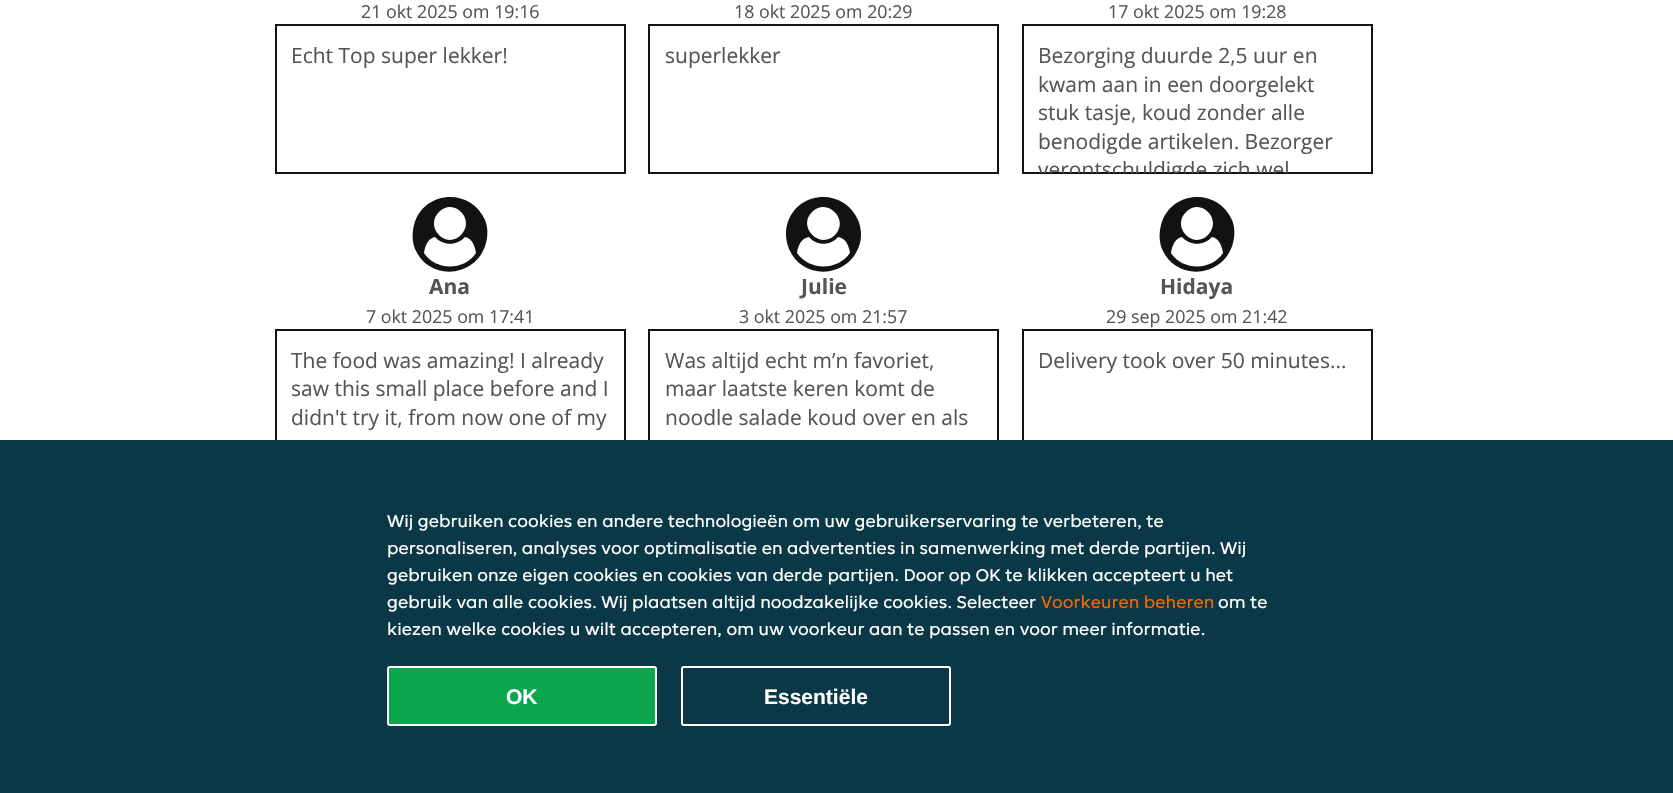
void draw(SkCanvas* c) {
SkPaint p;
p.setAntiAlias(true);
auto F=[&](const char* family, int weight, float size, bool italic = false){SkFontStyle style(weight, SkFontStyle::kNormal_Width,italic ? SkFontStyle::kItalic_Slant : SkFontStyle::kUpright_Slant);SkFont result(fontMgr->matchFamilyStyle(family, style), size);result.setSubpixel(true);return result;};
auto T=[&](const char* s, float x, float y, const SkFont& font){c->drawString(s, x, y, font, p);};
auto R=[&](float x, float y, float w, float h){c->drawRect(SkRect::MakeXYWH(x, y, w, h), p);};
auto P=[&](const char* data, bool evenOdd = false){SkPath result = *SkParsePath::FromSVGString(data);if (evenOdd) result.setFillType(SkPathFillType::kEvenOdd);return result;};
c->clear(0xffffffff);
auto f1 = F("Open Sans",400,17.8);
p.setColor(0xff555555);
T("21 okt 2025 om 19:16",361,18,f1);
p.setStroke(true);
p.setStrokeWidth(2);
p.setColor(0xff121212);
c->drawRect(SkRect::MakeXYWH(276,25,349,148),p);
auto f2 = F("Open Sans",400,21);
p.setStroke(false);
p.setColor(0xff555555);
T("Echt Top super lekker!",291,63,f2);
T("18 okt 2025 om 20:29",734,18,f1);
p.setStroke(true);
p.setColor(0xff121212);
c->drawRect(SkRect::MakeXYWH(649,25,349,148),p);
p.setStroke(false);
p.setColor(0xff555555);
T("superlekker",665,63,f2);
T("17 okt 2025 om 19:28",1108,18,f1);
p.setStroke(true);
p.setColor(0xff121212);
c->drawRect(SkRect::MakeXYWH(1023,25,349,148),p);
p.setStroke(false);
p.setColor(0xff555555);
T("Bezorging duurde 2,5 uur en",1038,63,f2);
T("kwam aan in een doorgelekt",1038,92,f2);
T("stuk tasje, koud zonder alle",1038,120,f2);
T("benodigde artikelen. Bezorger",1038,149,f2);
c->save();
c->clipRect(SkRect::MakeXYWH(1023,26,348,147));
T("verontschuldigde zich wel",1038,177,f2);
c->restore();
p.setColor(0xff121212);
c->drawPath(P("M476 253c-1-7-4-15-11-16c-8 9-22 9-30 0c-7 1-10 9-11 16c12 18 40 18 52 0zm-15-18c15-15-7-38-22-23c-15 15 7 38 22 23zm24-15c3 7 3 16 1 23c-9 35-57 39-71 6c-3-8-3-16-1-24c9-35 57-38 71-5z"),p);
auto f3 = F("Open Sans",700,21);
p.setColor(0xff555555);
T("Ana",429,294,f3);
T("7 okt 2025 om 17:41",366,323,f1);
p.setStroke(true);
p.setColor(0xff121212);
c->drawRect(SkRect::MakeXYWH(276,330,349,148),p);
p.setStroke(false);
p.setColor(0xff555555);
T("The food was amazing! I already",291,368,f2);
T("saw this small place before and I",291,396,f2);
T("didn't try it, from now one of my",291,425,f2);
p.setColor(0xff121212);
c->drawPath(P("M850 253c-1-7-4-15-12-16c-7 9-22 9-29 0c-8 1-11 9-12 16c13 18 40 18 53 0zm-15-18c15-15-8-38-23-23c-15 15 8 38 23 23zm23-15c3 7 4 16 2 23c-9 35-57 39-71 6c-3-8-4-16-2-24c9-35 57-38 71-5z"),p);
p.setColor(0xff555555);
T("Julie",801,294,f3);
T("3 okt 2025 om 21:57",739,323,f1);
p.setStroke(true);
p.setColor(0xff121212);
c->drawRect(SkRect::MakeXYWH(649,330,349,148),p);
p.setStroke(false);
p.setColor(0xff555555);
T("Was altijd echt m’n favoriet,",665,368,f2);
T("maar laatste keren komt de",665,396,f2);
T("noodle salade koud over en als",665,425,f2);
p.setColor(0xff121212);
c->drawPath(P("M1223 253c-1-7-4-15-11-16c-8 9-22 9-30 0c-7 1-10 9-11 16c12 18 40 18 52 0zm-15-18c15-15-7-38-22-23c-15 15 7 38 22 23zm24-15c3 7 3 16 1 23c-9 35-57 39-71 6c-3-8-3-16-1-24c9-35 57-38 71-5z"),p);
p.setColor(0xff555555);
T("Hidaya",1160,294,f3);
T("29 sep 2025 om 21:42",1106,323,f1);
p.setStroke(true);
p.setColor(0xff121212);
c->drawRect(SkRect::MakeXYWH(1023,330,349,148),p);
p.setStroke(false);
p.setColor(0xff555555);
T("Delivery took over 50 minutes...",1038,368,f2);
p.setColor(0xff0a3847);
R(0,440,1673,353);
auto f4 = F("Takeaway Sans",400,18);
p.setColor(0xffffffff);
T("Wij gebruiken cookies en andere technologieën om uw gebruikerservaring te verbeteren, te",387,527,f4);
T("personaliseren, analyses voor optimalisatie en advertenties in samenwerking met derde partijen. Wij",387,554,f4);
T("gebruiken onze eigen cookies en cookies van derde partijen. Door op OK te klikken accepteert u het",387,581,f4);
T("gebruik van alle cookies. Wij plaatsen altijd noodzakelijke cookies. Selecteer",387,608,f4);
p.setColor(0xfff86600);
T("Voorkeuren beheren",1041,608,f4);
p.setColor(0xffffffff);
T("om te",1218,608,f4);
T("kiezen welke cookies u wilt accepteren, om uw voorkeur aan te passen en voor meer informatie.",387,635,f4);
p.setColor(0xff0ca64f);
c->drawRoundRect(SkRect::MakeXYWH(388,667,268,58),2,2,p);
p.setStroke(true);
p.setColor(0xffffffff);
c->drawRoundRect(SkRect::MakeXYWH(388,667,268,58),2,2,p);
auto f5 = F("Liberation Sans",700,21);
p.setStroke(false);
T("OK",506,704,f5);
p.setStroke(true);
c->drawRoundRect(SkRect::MakeXYWH(682,667,268,58),2,2,p);
p.setStroke(false);
T("Essentiële",764,704,f5);
}
